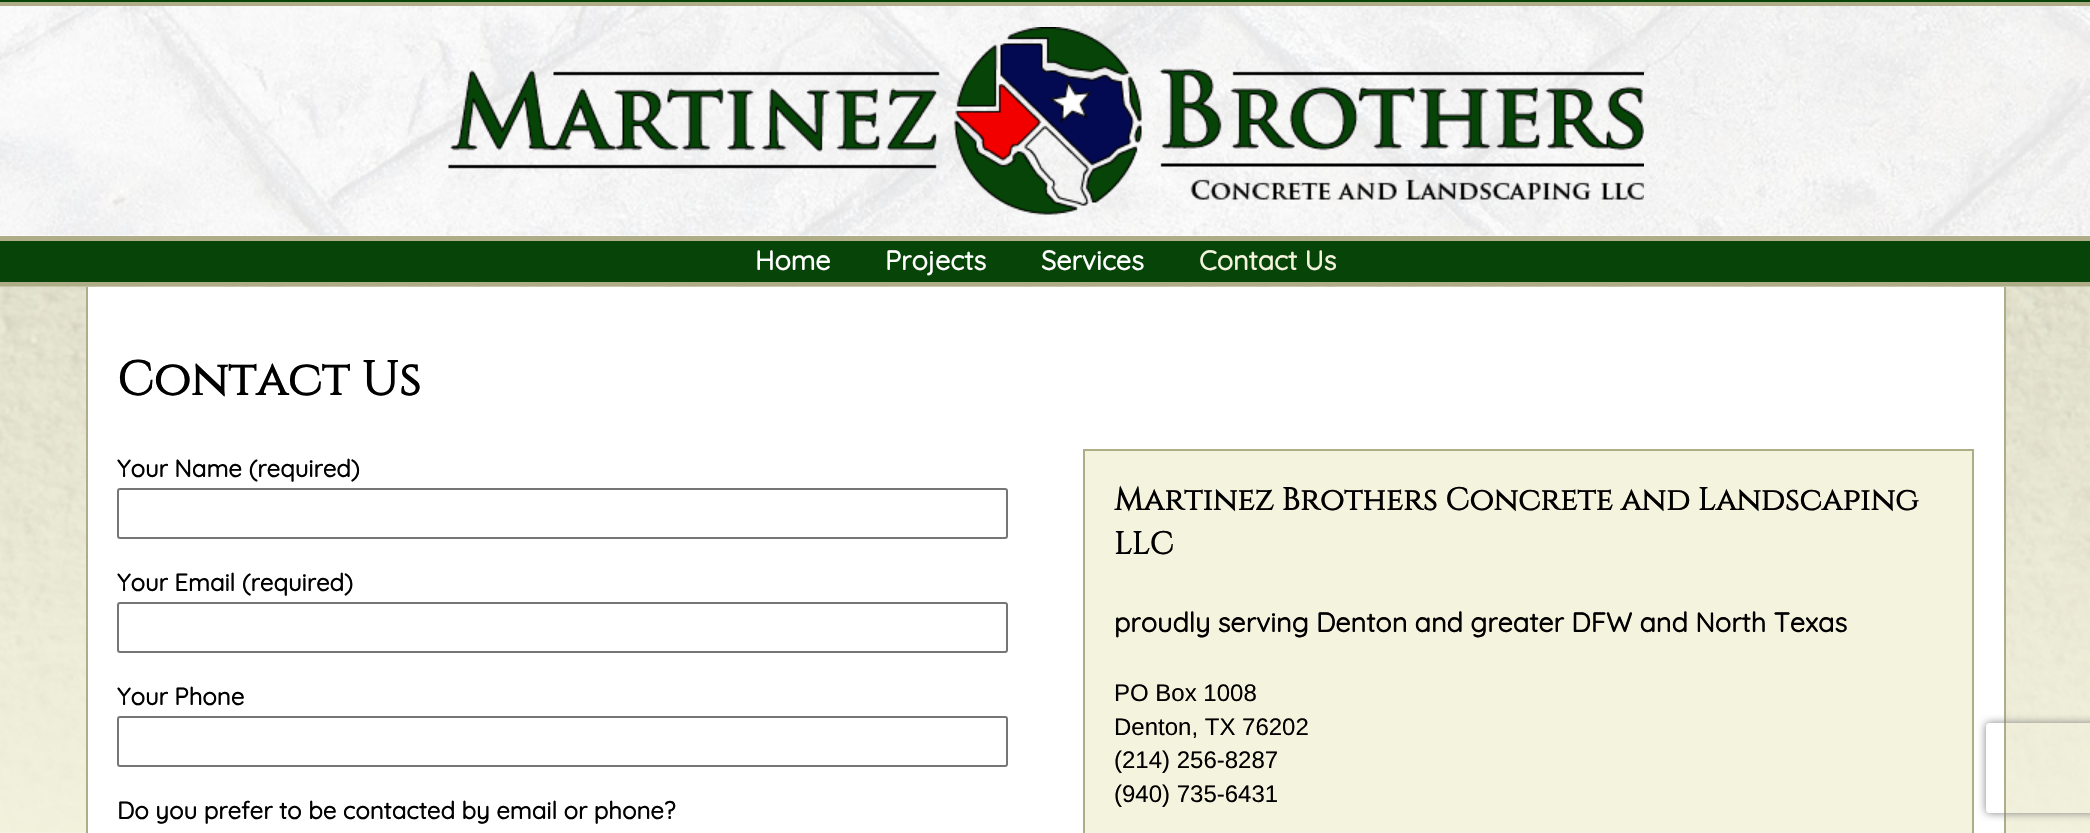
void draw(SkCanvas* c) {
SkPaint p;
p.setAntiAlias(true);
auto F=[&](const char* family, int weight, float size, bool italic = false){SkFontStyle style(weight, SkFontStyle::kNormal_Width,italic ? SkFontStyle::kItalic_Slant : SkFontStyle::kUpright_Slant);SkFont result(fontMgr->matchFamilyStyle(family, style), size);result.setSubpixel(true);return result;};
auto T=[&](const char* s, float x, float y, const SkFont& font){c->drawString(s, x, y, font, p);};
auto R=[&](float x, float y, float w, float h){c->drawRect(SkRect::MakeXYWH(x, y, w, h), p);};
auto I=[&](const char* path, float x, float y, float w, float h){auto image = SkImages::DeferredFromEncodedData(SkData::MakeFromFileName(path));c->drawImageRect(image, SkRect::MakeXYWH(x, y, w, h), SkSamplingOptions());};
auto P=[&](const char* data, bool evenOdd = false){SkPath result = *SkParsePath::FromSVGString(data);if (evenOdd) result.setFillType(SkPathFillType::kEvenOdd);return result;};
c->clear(0xfff4f3de);
p.setColor(0xff074408);
R(0,0,2090,2);
p.setColor(0xffafad87);
R(0,2,2090,4);
p.setColor(0xffffffff);
R(0,235,2090,1);
I("1.png",0,6,2090,230);
I("2.png",448,27,1196,188);
p.setColor(0xff074408);
R(0,241,2090,41);
p.setColor(0xffafad87);
R(0,236,2090,5);
R(0,282,2090,5);
auto f1 = F("Quicksand",700,27);
p.setColor(0xffffffff);
T("Home",755,270,f1);
T("Projects",885,270,f1);
T("Services",1041,270,f1);
p.setColor(0xfff4f3de);
T("Contact Us",1199,270,f1);
I("3.png",0,286,2090,546);
p.setColor(0xffffffff);
R(88,287,1916,546);
p.setColor(0xffafad87);
R(2004,287,2,546);
R(86,287,2,546);
auto f2 = F("Cinzel",700,48);
p.setColor(0xff000000);
T("Contact Us",117,395,f2);
auto f3 = F("Quicksand",700,24);
T("Your Name (required)",117,477,f3);
p.setStroke(true);
p.setStrokeWidth(2);
p.setColor(0xff767676);
c->drawRoundRect(SkRect::MakeXYWH(118,489,889,49),2,2,p);
p.setStroke(false);
p.setColor(0xff000000);
T("Your Email (required)",117,591,f3);
p.setStroke(true);
p.setColor(0xff767676);
c->drawRoundRect(SkRect::MakeXYWH(118,603,889,49),2,2,p);
p.setStroke(false);
p.setColor(0xff000000);
T("Your Phone",117,705,f3);
p.setStroke(true);
p.setColor(0xff767676);
c->drawRoundRect(SkRect::MakeXYWH(118,717,889,49),2,2,p);
p.setStroke(false);
p.setColor(0xff000000);
T("Do you prefer to be contacted by email or phone?",117,819,f3);
p.setColor(0xfff4f3de);
c->drawRect(SkRect::MakeXYWH(1084,450,889,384),p);
p.setStroke(true);
p.setColor(0xffafad87);
c->drawRect(SkRect::MakeXYWH(1084,450,889,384),p);
auto f4 = F("Cinzel",700,31.5);
p.setStroke(false);
p.setColor(0xff000000);
T("Martinez Brothers Concrete and Landscaping",1114,510,f4);
T("LLC",1114,554,f4);
T("proudly serving Denton and greater DFW and North Texas",1114,632,f1);
auto f5 = F("Liberation Sans",400,24);
T("PO Box 1008",1114,701,f5);
T("Denton, TX 76202",1114,735,f5);
T("(214) 256-8287",1114,768,f5);
T("(940) 735-6431",1114,802,f5);
c->save();
c->clipPath(P("M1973 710h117v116h-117zm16 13h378c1.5 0 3 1.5 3 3v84c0 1.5-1.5 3-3 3h-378c-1.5 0-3-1.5-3-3v-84c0-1.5 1.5-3 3-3z",true),true);
p.setColor(0xff808080);
p.setMaskFilter(SkMaskFilter::MakeBlur(kNormal_SkBlurStyle, 4));
c->drawRoundRect(SkRect::MakeXYWH(1986,723,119,90),3,3,p);
p.setMaskFilter(nullptr);
c->restore();
}
